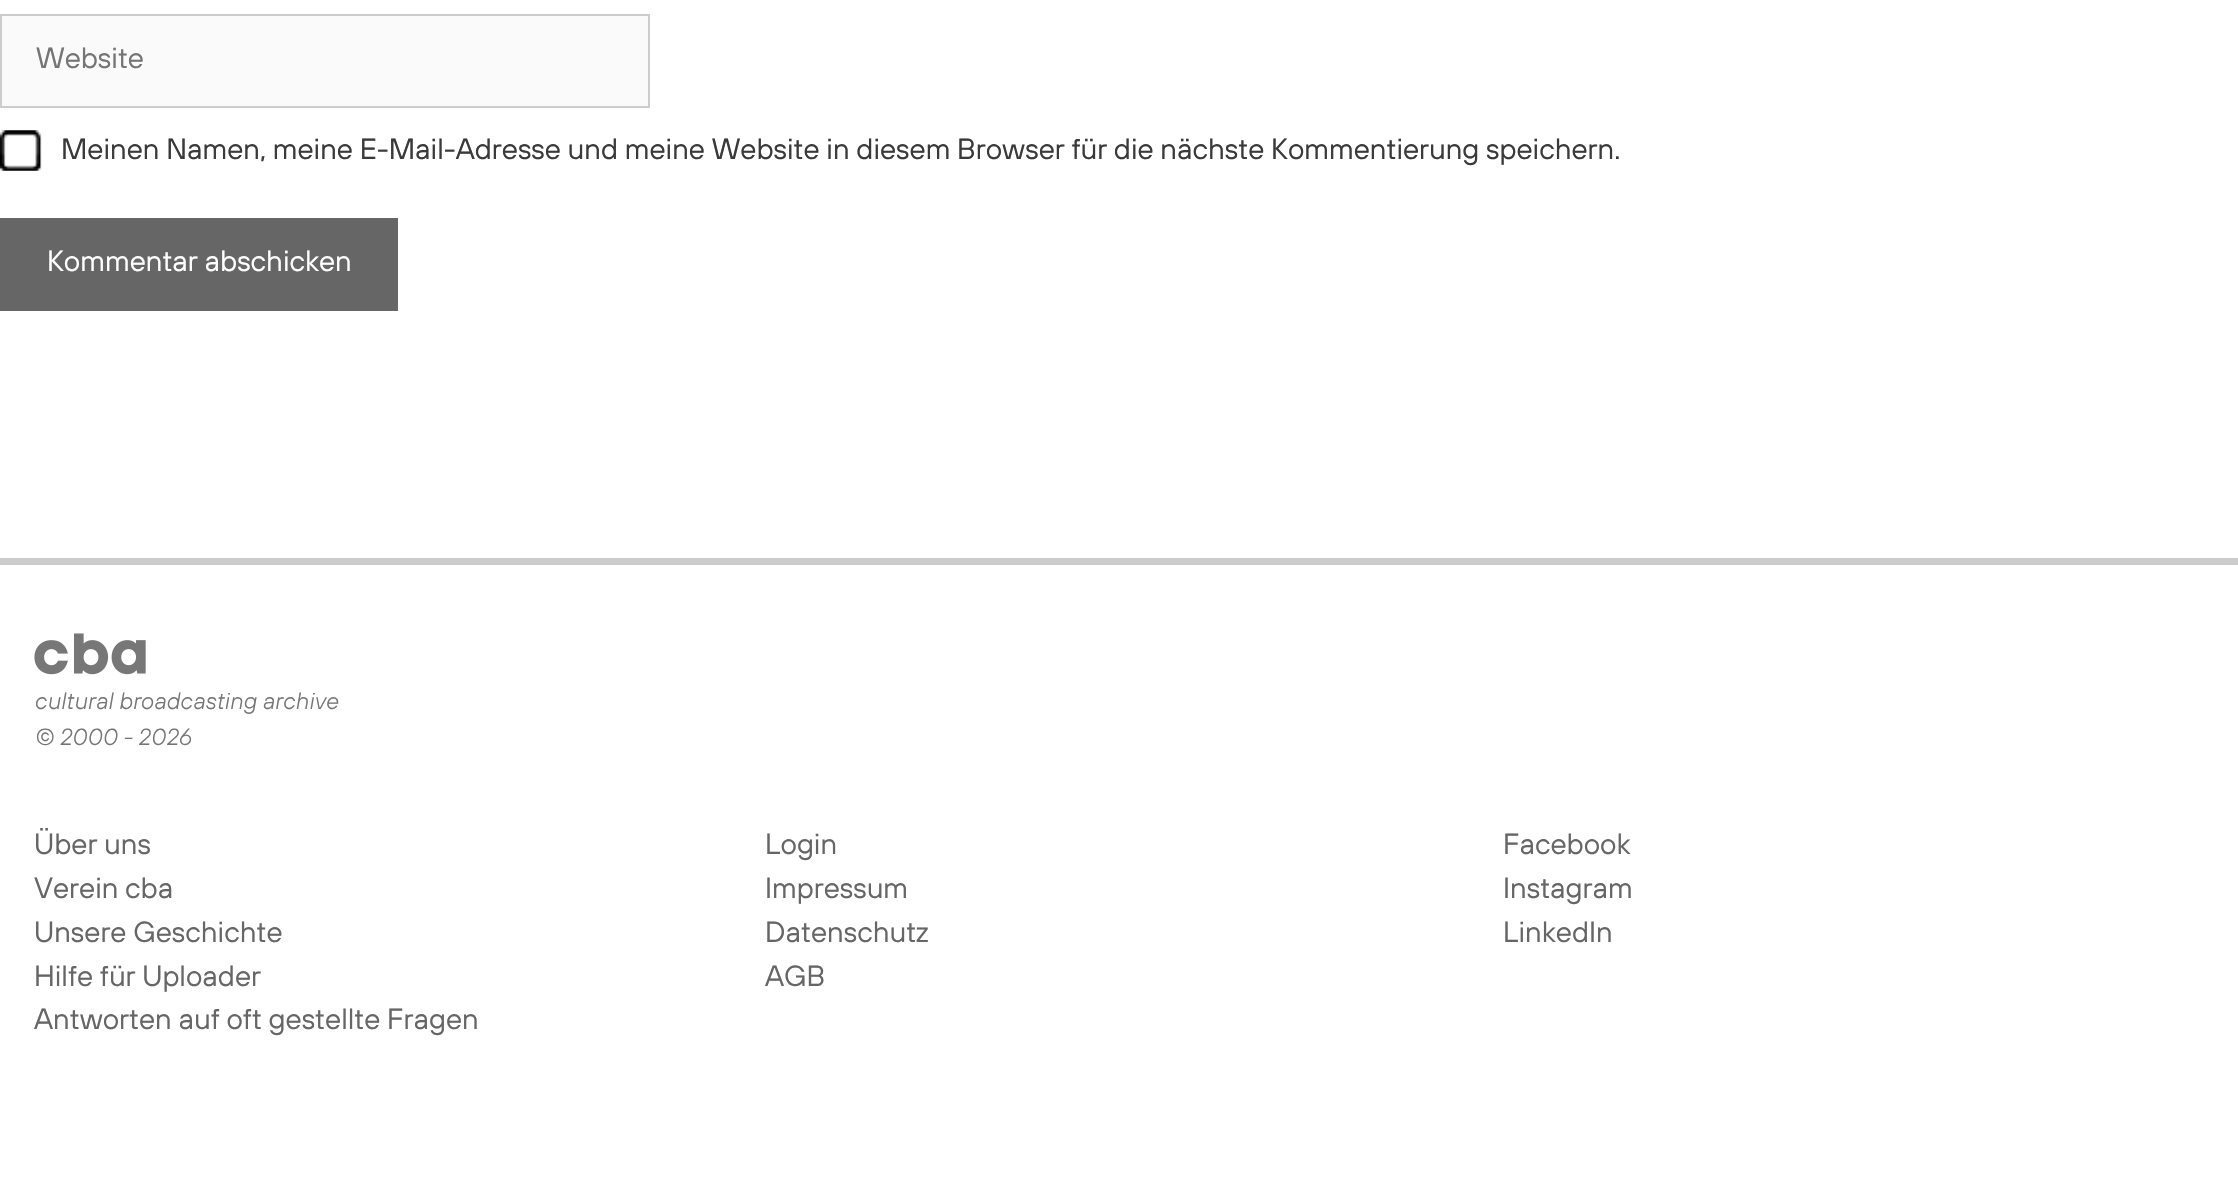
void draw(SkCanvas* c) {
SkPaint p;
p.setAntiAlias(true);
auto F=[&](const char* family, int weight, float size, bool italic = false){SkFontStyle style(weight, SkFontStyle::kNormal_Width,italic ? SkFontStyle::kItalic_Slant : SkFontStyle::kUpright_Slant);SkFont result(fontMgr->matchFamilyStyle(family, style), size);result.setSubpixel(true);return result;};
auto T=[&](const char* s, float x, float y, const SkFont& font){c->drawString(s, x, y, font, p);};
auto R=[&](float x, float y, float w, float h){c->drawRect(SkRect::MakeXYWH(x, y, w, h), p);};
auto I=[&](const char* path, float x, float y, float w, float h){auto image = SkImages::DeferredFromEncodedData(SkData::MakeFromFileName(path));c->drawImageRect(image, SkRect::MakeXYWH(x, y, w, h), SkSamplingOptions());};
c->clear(0xffffffff);
p.setColor(0xfffafafa);
c->drawRect(SkRect::MakeXYWH(1,15,648,92),p);
p.setStroke(true);
p.setStrokeWidth(2);
p.setColor(0xffcccccc);
c->drawRect(SkRect::MakeXYWH(1,15,648,92),p);
auto f1 = F("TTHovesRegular",400,29.25);
p.setStroke(false);
p.setColor(0xff757575);
T("Website",36,68,f1);
I("1.png",0,130,42,41);
p.setColor(0xff3a3a3a);
T("Meinen Namen, meine E-Mail-Adresse und meine Website in diesem Browser für die nächste Kommentierung speichern.",61,159,f1);
p.setColor(0xff666666);
R(0,218,398,93);
p.setColor(0xffffffff);
T("Kommentar abschicken",47,271,f1);
p.setColor(0xffcccccc);
R(0,558,2238,7);
I("2.png",34,633,112,42);
auto f2 = F("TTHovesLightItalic",400,23.4);
p.setColor(0xff757575);
T("cultural broadcasting archive",34,709,f2);
T("© 2000 - 2026",34,745,f2);
p.setColor(0xff666666);
T("Über uns",34,854,f1);
T("Verein cba",34,898,f1);
T("Unsere Geschichte",34,942,f1);
T("Hilfe für Uploader",34,986,f1);
T("Antworten auf oft gestellte Fragen",34,1029,f1);
T("Login",765,854,f1);
T("Impressum",765,898,f1);
T("Datenschutz",765,942,f1);
T("AGB",765,986,f1);
T("Facebook",1503,854,f1);
T("Instagram",1503,898,f1);
T("LinkedIn",1503,942,f1);
}
